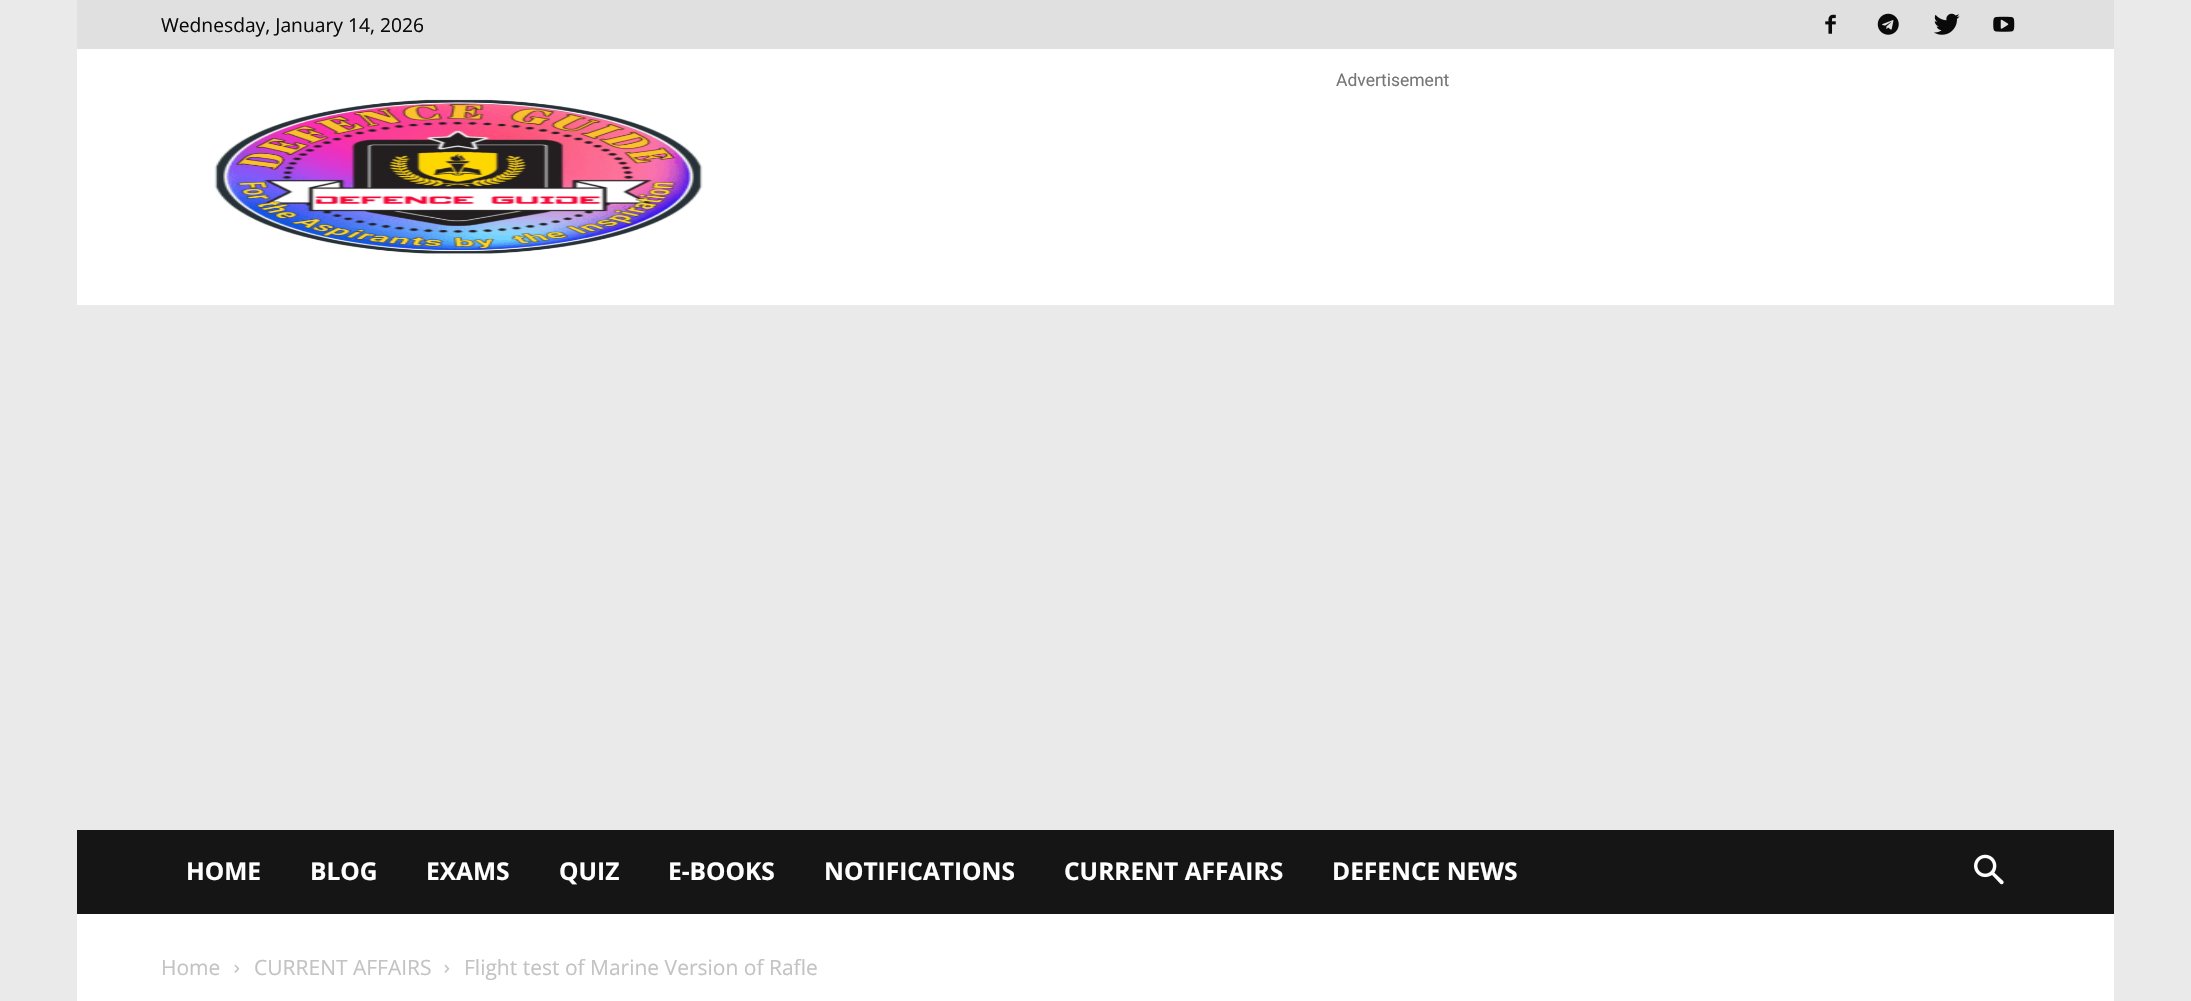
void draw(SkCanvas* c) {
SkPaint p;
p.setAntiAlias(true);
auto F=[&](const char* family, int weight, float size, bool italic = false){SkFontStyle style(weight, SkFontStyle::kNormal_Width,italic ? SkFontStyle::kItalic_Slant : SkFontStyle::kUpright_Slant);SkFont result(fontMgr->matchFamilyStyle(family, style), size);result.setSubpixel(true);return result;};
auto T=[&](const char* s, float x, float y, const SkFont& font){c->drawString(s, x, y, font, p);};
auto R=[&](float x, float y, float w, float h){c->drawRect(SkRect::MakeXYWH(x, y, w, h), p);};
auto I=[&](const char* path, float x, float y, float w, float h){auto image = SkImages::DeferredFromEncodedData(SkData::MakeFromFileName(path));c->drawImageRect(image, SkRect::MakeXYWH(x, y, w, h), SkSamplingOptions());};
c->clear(0xffeaeaea);
p.setColor(0xffe0e0e0);
R(77,0,2037,49);
auto f1 = F("Open Sans",400,19.25);
p.setColor(0xff0a0a0a);
T("Wednesday, January 14, 2026",161,32,f1);
I("1.png",1825,14,11,20);
I("2.png",1877,13,22,22);
I("3.png",1934,13,26,22);
I("4.png",1993,16,22,16);
p.setColor(0xffffffff);
R(77,49,2037,256);
auto f2 = F("Roboto",400,17.5);
p.setColor(0xff767676);
T("Advertisement",1336,86,f2);
I("5.png",214,99,489,155);
p.setColor(0xff151515);
R(77,830,2037,84);
auto f3 = F("Open Sans",700,24.5);
p.setColor(0xffffffff);
T("HOME",186,880,f3);
T("BLOG",310,880,f3);
T("EXAMS",426,880,f3);
T("QUIZ",559,880,f3);
T("E-BOOKS",668,880,f3);
T("NOTIFICATIONS",824,880,f3);
T("CURRENT AFFAIRS",1064,880,f3);
T("DEFENCE NEWS",1332,880,f3);
I("6.png",1974,854,30,31);
R(77,914,2037,87);
auto f4 = F("Open Sans",400,21);
p.setColor(0xffc3c3c3);
T("Home",161,975,f4);
I("7.png",234,964,6,9);
T("CURRENT AFFAIRS",254,975,f4);
I("7.png",444,964,6,9);
T("Flight test of Marine Version of Rafle",464,975,f4);
}
